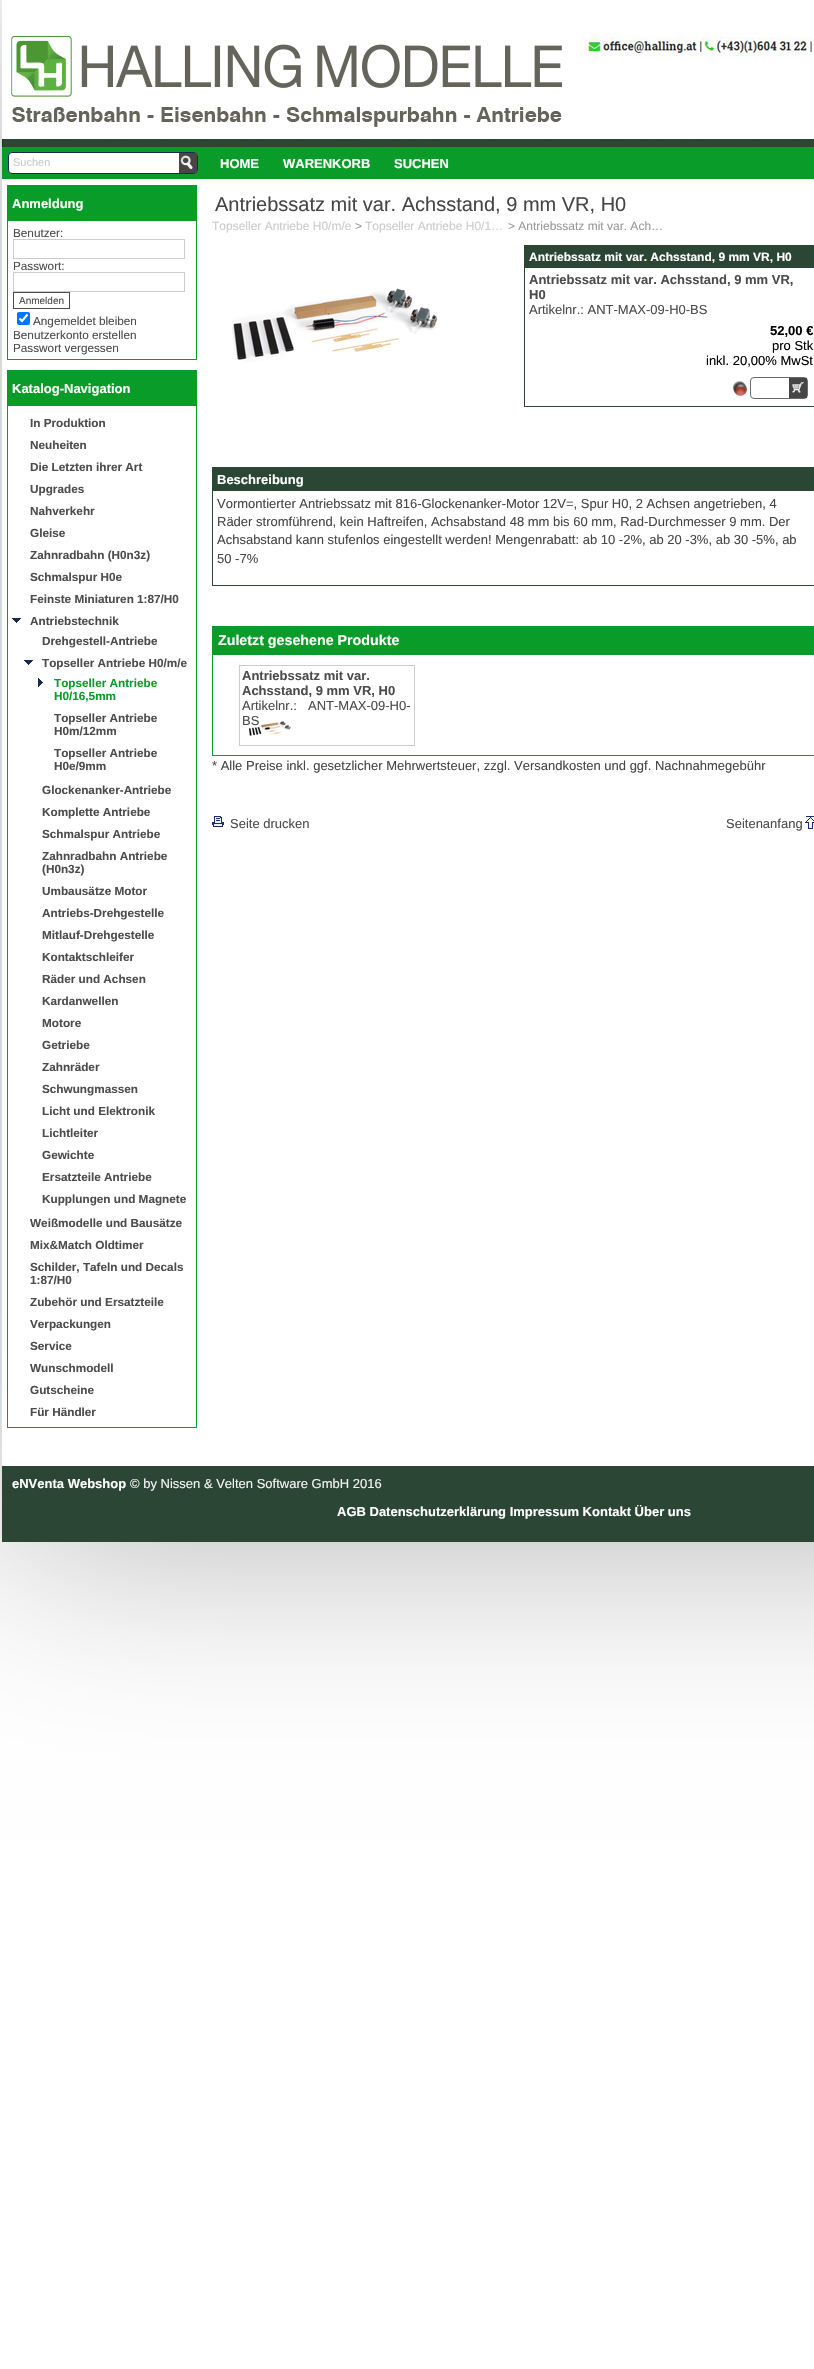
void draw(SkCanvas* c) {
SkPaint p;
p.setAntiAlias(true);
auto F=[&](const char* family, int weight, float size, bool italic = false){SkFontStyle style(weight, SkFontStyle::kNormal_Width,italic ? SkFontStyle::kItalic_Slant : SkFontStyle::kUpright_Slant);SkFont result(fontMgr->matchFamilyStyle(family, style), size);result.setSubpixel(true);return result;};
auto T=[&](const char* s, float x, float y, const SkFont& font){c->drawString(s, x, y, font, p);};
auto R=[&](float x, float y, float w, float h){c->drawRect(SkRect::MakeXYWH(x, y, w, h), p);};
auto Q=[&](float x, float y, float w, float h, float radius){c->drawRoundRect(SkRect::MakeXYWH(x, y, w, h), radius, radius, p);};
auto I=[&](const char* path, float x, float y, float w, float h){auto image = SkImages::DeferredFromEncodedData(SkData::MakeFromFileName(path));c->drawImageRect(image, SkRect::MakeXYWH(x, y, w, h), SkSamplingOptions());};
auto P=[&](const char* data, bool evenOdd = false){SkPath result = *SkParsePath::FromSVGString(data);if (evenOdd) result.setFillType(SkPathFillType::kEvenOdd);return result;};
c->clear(0xffffffff);
c->save();
c->clipPath(P("M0 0h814v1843h-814zm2 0h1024v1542h-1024z",true),true);
p.setColor(0x4d000000);
p.setMaskFilter(SkMaskFilter::MakeBlur(kNormal_SkBlurStyle, 100));
c->drawRect(SkRect::MakeXYWH(2,0,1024,1542),p);
p.setMaskFilter(nullptr);
c->restore();
I("1.png",2,33,812,114);
p.setColor(0xff099c29);
R(2,147,812,32);
p.setColor(0xffffffff);
c->drawRoundRect(SkRect::MakeXYWH(8.5,152.5,189,21),3.5,3.5,p);
p.setStroke(true);
p.setStrokeWidth(1);
p.setColor(0xff182954);
c->drawRoundRect(SkRect::MakeXYWH(8.5,152.5,189,21),3.5,3.5,p);
auto f1 = F("Liberation Sans",400,11);
p.setStroke(false);
p.setColor(0xffcccccc);
T("Suchen",13,166,f1);
p.setColor(0xff464646);
R(179,153,18,20);
I("2.png",180,155,13,15);
auto f2 = F("Liberation Sans",700,13);
p.setColor(0xffffffff);
T("HOME",220,168,f2);
T("WARENKORB",283,168,f2);
T("SUCHEN",394,168,f2);
p.setStroke(true);
p.setColor(0xff099c29);
c->drawRect(SkRect::MakeXYWH(7.5,185.5,189,174),p);
p.setStroke(false);
R(8,186,188,35);
p.setColor(0xffffffff);
T("Anmeldung",12,208,f2);
auto f3 = F("Liberation Sans",400,11.75);
p.setColor(0xff4c4c4c);
T("Benutzer:",13,237,f3);
p.setStroke(true);
p.setColor(0xffcccccc);
c->drawRect(SkRect::MakeXYWH(13.5,239.5,171,19),p);
p.setStroke(false);
p.setColor(0xff4c4c4c);
T("Passwort:",13,270,f3);
p.setStroke(true);
p.setColor(0xffcccccc);
c->drawRect(SkRect::MakeXYWH(13.5,272.5,171,19),p);
p.setColor(0xff4c4c4c);
c->drawRect(SkRect::MakeXYWH(13.5,292.5,56,16),p);
auto f4 = F("Liberation Sans",400,10);
p.setStroke(false);
T("Anmelden",19,304,f4);
p.setColor(0xff0075ff);
Q(17,312,13,13,2);
p.setStroke(true);
p.setStrokeWidth(2.1);
p.setColor(0xffffffff);
c->drawPath(P("M19.5 318.5l2.5 2.5l5.5-6.5"),p);
p.setStroke(false);
p.setColor(0xff4c4c4c);
T("Angemeldet bleiben",33,325,f3);
T("Benutzerkonto erstellen",13,339,f3);
T("Passwort vergessen",13,352,f3);
p.setStroke(true);
p.setStrokeWidth(1);
p.setColor(0xff099c29);
c->drawRect(SkRect::MakeXYWH(7.5,370.5,189,1057),p);
p.setStroke(false);
R(8,371,188,35);
p.setColor(0xffffffff);
T("Katalog-Navigation",12,393,f2);
auto f5 = F("Liberation Sans",700,11.75);
p.setColor(0xff4c4c4c);
T("In Produktion",30,427,f5);
T("Neuheiten",30,449,f5);
T("Die Letzten ihrer Art",30,471,f5);
T("Upgrades",30,493,f5);
T("Nahverkehr",30,515,f5);
T("Gleise",30,537,f5);
T("Zahnradbahn (H0n3z)",30,559,f5);
T("Schmalspur H0e",30,581,f5);
T("Feinste Miniaturen 1:87/H0",30,603,f5);
I("3.png",12,618,9,5);
T("Antriebstechnik",30,625,f5);
T("Drehgestell-Antriebe",42,645,f5);
I("3.png",24,660,9,5);
T("Topseller Antriebe H0/m/e",42,667,f5);
I("4.png",38,678,5,9);
p.setColor(0xff099c29);
T("Topseller Antriebe",54,687,f5);
T("H0/16,5mm",54,700,f5);
p.setColor(0xff4c4c4c);
T("Topseller Antriebe",54,722,f5);
T("H0m/12mm",54,735,f5);
T("Topseller Antriebe",54,757,f5);
T("H0e/9mm",54,770,f5);
T("Glockenanker-Antriebe",42,794,f5);
T("Komplette Antriebe",42,816,f5);
T("Schmalspur Antriebe",42,838,f5);
T("Zahnradbahn Antriebe",42,860,f5);
T("(H0n3z)",42,873,f5);
T("Umbausätze Motor",42,895,f5);
T("Antriebs-Drehgestelle",42,917,f5);
T("Mitlauf-Drehgestelle",42,939,f5);
T("Kontaktschleifer",42,961,f5);
T("Räder und Achsen",42,983,f5);
T("Kardanwellen",42,1005,f5);
T("Motore",42,1027,f5);
T("Getriebe",42,1049,f5);
T("Zahnräder",42,1071,f5);
T("Schwungmassen",42,1093,f5);
T("Licht und Elektronik",42,1115,f5);
T("Lichtleiter",42,1137,f5);
T("Gewichte",42,1159,f5);
T("Ersatzteile Antriebe",42,1181,f5);
T("Kupplungen und Magnete",42,1203,f5);
T("Weißmodelle und Bausätze",30,1227,f5);
T("Mix&Match Oldtimer",30,1249,f5);
T("Schilder, Tafeln und Decals",30,1271,f5);
T("1:87/H0",30,1284,f5);
T("Zubehör und Ersatzteile",30,1306,f5);
T("Verpackungen",30,1328,f5);
T("Service",30,1350,f5);
T("Wunschmodell",30,1372,f5);
T("Gutscheine",30,1394,f5);
T("Für Händler",30,1416,f5);
auto f6 = F("Liberation Sans",400,20);
p.setColor(0xff464646);
T("Antriebssatz mit var. Achsstand, 9 mm VR, H0",215,211,f6);
auto f7 = F("Liberation Sans",400,12);
p.setColor(0xffcccccc);
T("Topseller Antriebe H0/m/e",212,230,f7);
p.setColor(0xff999999);
T(">",355,230,f7);
p.setColor(0xffcccccc);
T("Topseller Antriebe H0/1…",365,230,f7);
p.setColor(0xff999999);
T("> Antriebssatz mit var. Ach…",508,230,f7);
I("5.png",232,288,206,74);
p.setStroke(true);
p.setColor(0xff2b4635);
c->drawRect(SkRect::MakeXYWH(524.5,245.5,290,161),p);
p.setStroke(false);
R(525,246,289,22);
auto f8 = F("Liberation Sans",700,12);
p.setColor(0xffffffff);
T("Antriebssatz mit var. Achsstand, 9 mm VR, H0",529,261,f8);
p.setColor(0xff4c4c4c);
T("Antriebssatz mit var. Achsstand, 9 mm VR,",529,284,f2);
T("H0",529,299,f2);
auto f9 = F("Liberation Sans",400,13);
T("Artikelnr.: ANT-MAX-09-H0-BS",529,314,f9);
p.setColor(0xff000000);
T("52,00 €",770,335,f2);
T("pro Stk",772,350,f9);
T("inkl. 20,00% MwSt",706,365,f9);
I("6.png",732,381,15,15);
p.setStroke(true);
p.setColor(0xff676c6b);
c->drawRoundRect(SkRect::MakeXYWH(750.5,377.5,57,21),3.5,3.5,p);
p.setStroke(false);
p.setColor(0xff464646);
R(789,378,18,20);
I("7.png",792,382,12,11);
p.setStroke(true);
p.setColor(0xff2b4635);
c->drawRect(SkRect::MakeXYWH(212.5,467.5,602,118),p);
p.setStroke(false);
R(213,468,601,23);
p.setColor(0xffffffff);
T("Beschreibung",217,484,f2);
p.setColor(0xff464646);
T("Vormontierter Antriebssatz mit 816-Glockenanker-Motor 12V=, Spur H0, 2 Achsen angetrieben, 4",217,508,f9);
T("Räder stromführend, kein Haftreifen, Achsabstand 48 mm bis 60 mm, Rad-Durchmesser 9 mm. Der",217,526,f9);
T("Achsabstand kann stufenlos eingestellt werden! Mengenrabatt: ab 10 -2%, ab 20 -3%, ab 30 -5%, ab",217,544,f9);
T("50 -7%",217,563,f9);
p.setColor(0xff099c29);
R(212,626,602,28);
auto f10 = F("Liberation Sans",700,14.25);
p.setColor(0xffffffff);
T("Zuletzt gesehene Produkte",218,645,f10);
p.setStroke(true);
p.setColor(0xff099c29);
c->drawRect(SkRect::MakeXYWH(212.5,654.5,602,101),p);
p.setColor(0xffcccccc);
c->drawRect(SkRect::MakeXYWH(239.5,665.5,175,80),p);
I("8.png",248,721,43,15);
p.setStroke(false);
p.setColor(0xff4c4c4c);
T("Antriebssatz mit var.",242,680,f2);
T("Achsstand, 9 mm VR, H0",242,695,f2);
T("Artikelnr.:",242,710,f9);
T("ANT-MAX-09-H0-",308,710,f9);
T("BS",242,725,f9);
p.setColor(0xff464646);
T("* Alle Preise inkl. gesetzlicher Mehrwertsteuer, zzgl. Versandkosten und ggf. Nachnahmegebühr",212,770,f9);
I("9.png",212,816,12,11);
p.setColor(0xff4c4c4c);
T("Seite drucken",230,828,f9);
I("10.png",805,816,9,13);
T("Seitenanfang",726,828,f9);
p.setColor(0xff2b4635);
R(2,1466,812,76);
p.setColor(0xffffffff);
T("eNVenta Webshop",12,1488,f2);
p.setColor(0xfff5f5f5);
T("© by Nissen & Velten Software GmbH 2016",130,1488,f9);
p.setColor(0xffffffff);
T("AGB Datenschutzerklärung Impressum Kontakt Über uns",337,1516,f2);
}
